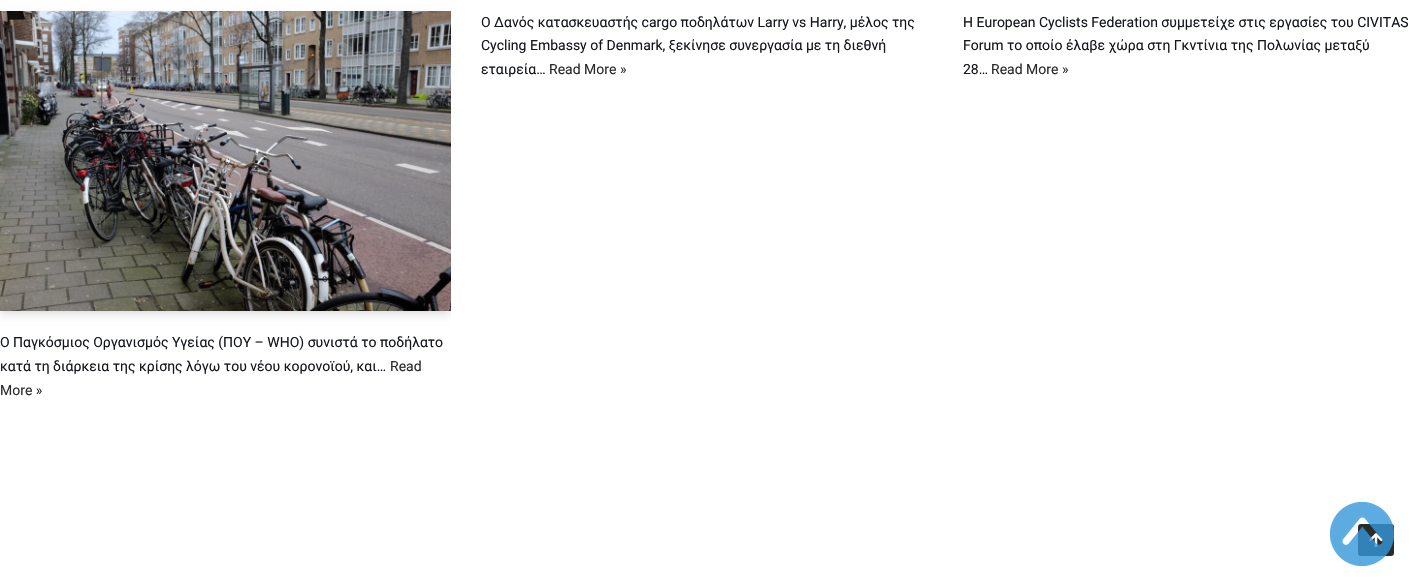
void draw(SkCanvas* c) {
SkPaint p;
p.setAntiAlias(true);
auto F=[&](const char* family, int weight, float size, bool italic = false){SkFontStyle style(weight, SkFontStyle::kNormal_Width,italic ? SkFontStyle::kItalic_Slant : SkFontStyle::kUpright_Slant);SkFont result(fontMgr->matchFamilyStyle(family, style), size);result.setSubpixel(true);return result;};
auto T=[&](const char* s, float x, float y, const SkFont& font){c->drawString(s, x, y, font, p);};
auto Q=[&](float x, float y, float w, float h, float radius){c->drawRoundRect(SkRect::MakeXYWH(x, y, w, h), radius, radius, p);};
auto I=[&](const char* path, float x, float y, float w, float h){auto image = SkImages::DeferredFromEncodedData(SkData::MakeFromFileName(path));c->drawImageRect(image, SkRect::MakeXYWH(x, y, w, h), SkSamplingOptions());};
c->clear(0xffffffff);
auto f1 = F("Roboto",400,14);
p.setColor(0xff14171c);
T("Ο Δανός κατασκευαστής cargo ποδηλάτων Larry vs Harry, μέλος της",481,27,f1);
T("Cycling Embassy of Denmark, ξεκίνησε συνεργασία με τη διεθνή",481,50,f1);
T("εταιρεία…",481,74,f1);
p.setColor(0xff2b2b2b);
T("Read More »",549,74,f1);
p.setColor(0xff14171c);
T("Η European Cyclists Federation συμμετείχε στις εργασίες του CIVITAS",963,27,f1);
T("Forum το οποίο έλαβε χώρα στη Γκντίνια της Πολωνίας μεταξύ",963,50,f1);
T("28…",963,74,f1);
p.setColor(0xff2b2b2b);
T("Read More »",991,74,f1);
c->save();
c->clipRect(SkRect::MakeXYWH(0,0,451,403));
p.setColor(0x1a000000);
p.setMaskFilter(SkMaskFilter::MakeBlur(kNormal_SkBlurStyle, 4));
c->drawRect(SkRect::MakeXYWH(0,15,451,300),p);
p.setMaskFilter(nullptr);
c->restore();
p.setMaskFilter(SkMaskFilter::MakeBlur(kNormal_SkBlurStyle, 3));
c->drawRect(SkRect::MakeXYWH(5,19,441,290),p);
p.setMaskFilter(nullptr);
I("1.png",0,11,451,300);
p.setColor(0xff14171c);
T("Ο Παγκόσμιος Οργανισμός Υγείας (ΠΟΥ – WHO) συνιστά το ποδήλατο",0,347,f1);
T("κατά τη διάρκεια της κρίσης λόγω του νέου κορονοϊού, και…",0,371,f1);
p.setColor(0xff2b2b2b);
T("Read",390,371,f1);
T("More »",0,395,f1);
Q(1358,524,36,32,3);
I("2.png",1369,533,14,14);
I("3.png",1330,502,64,64);
}
